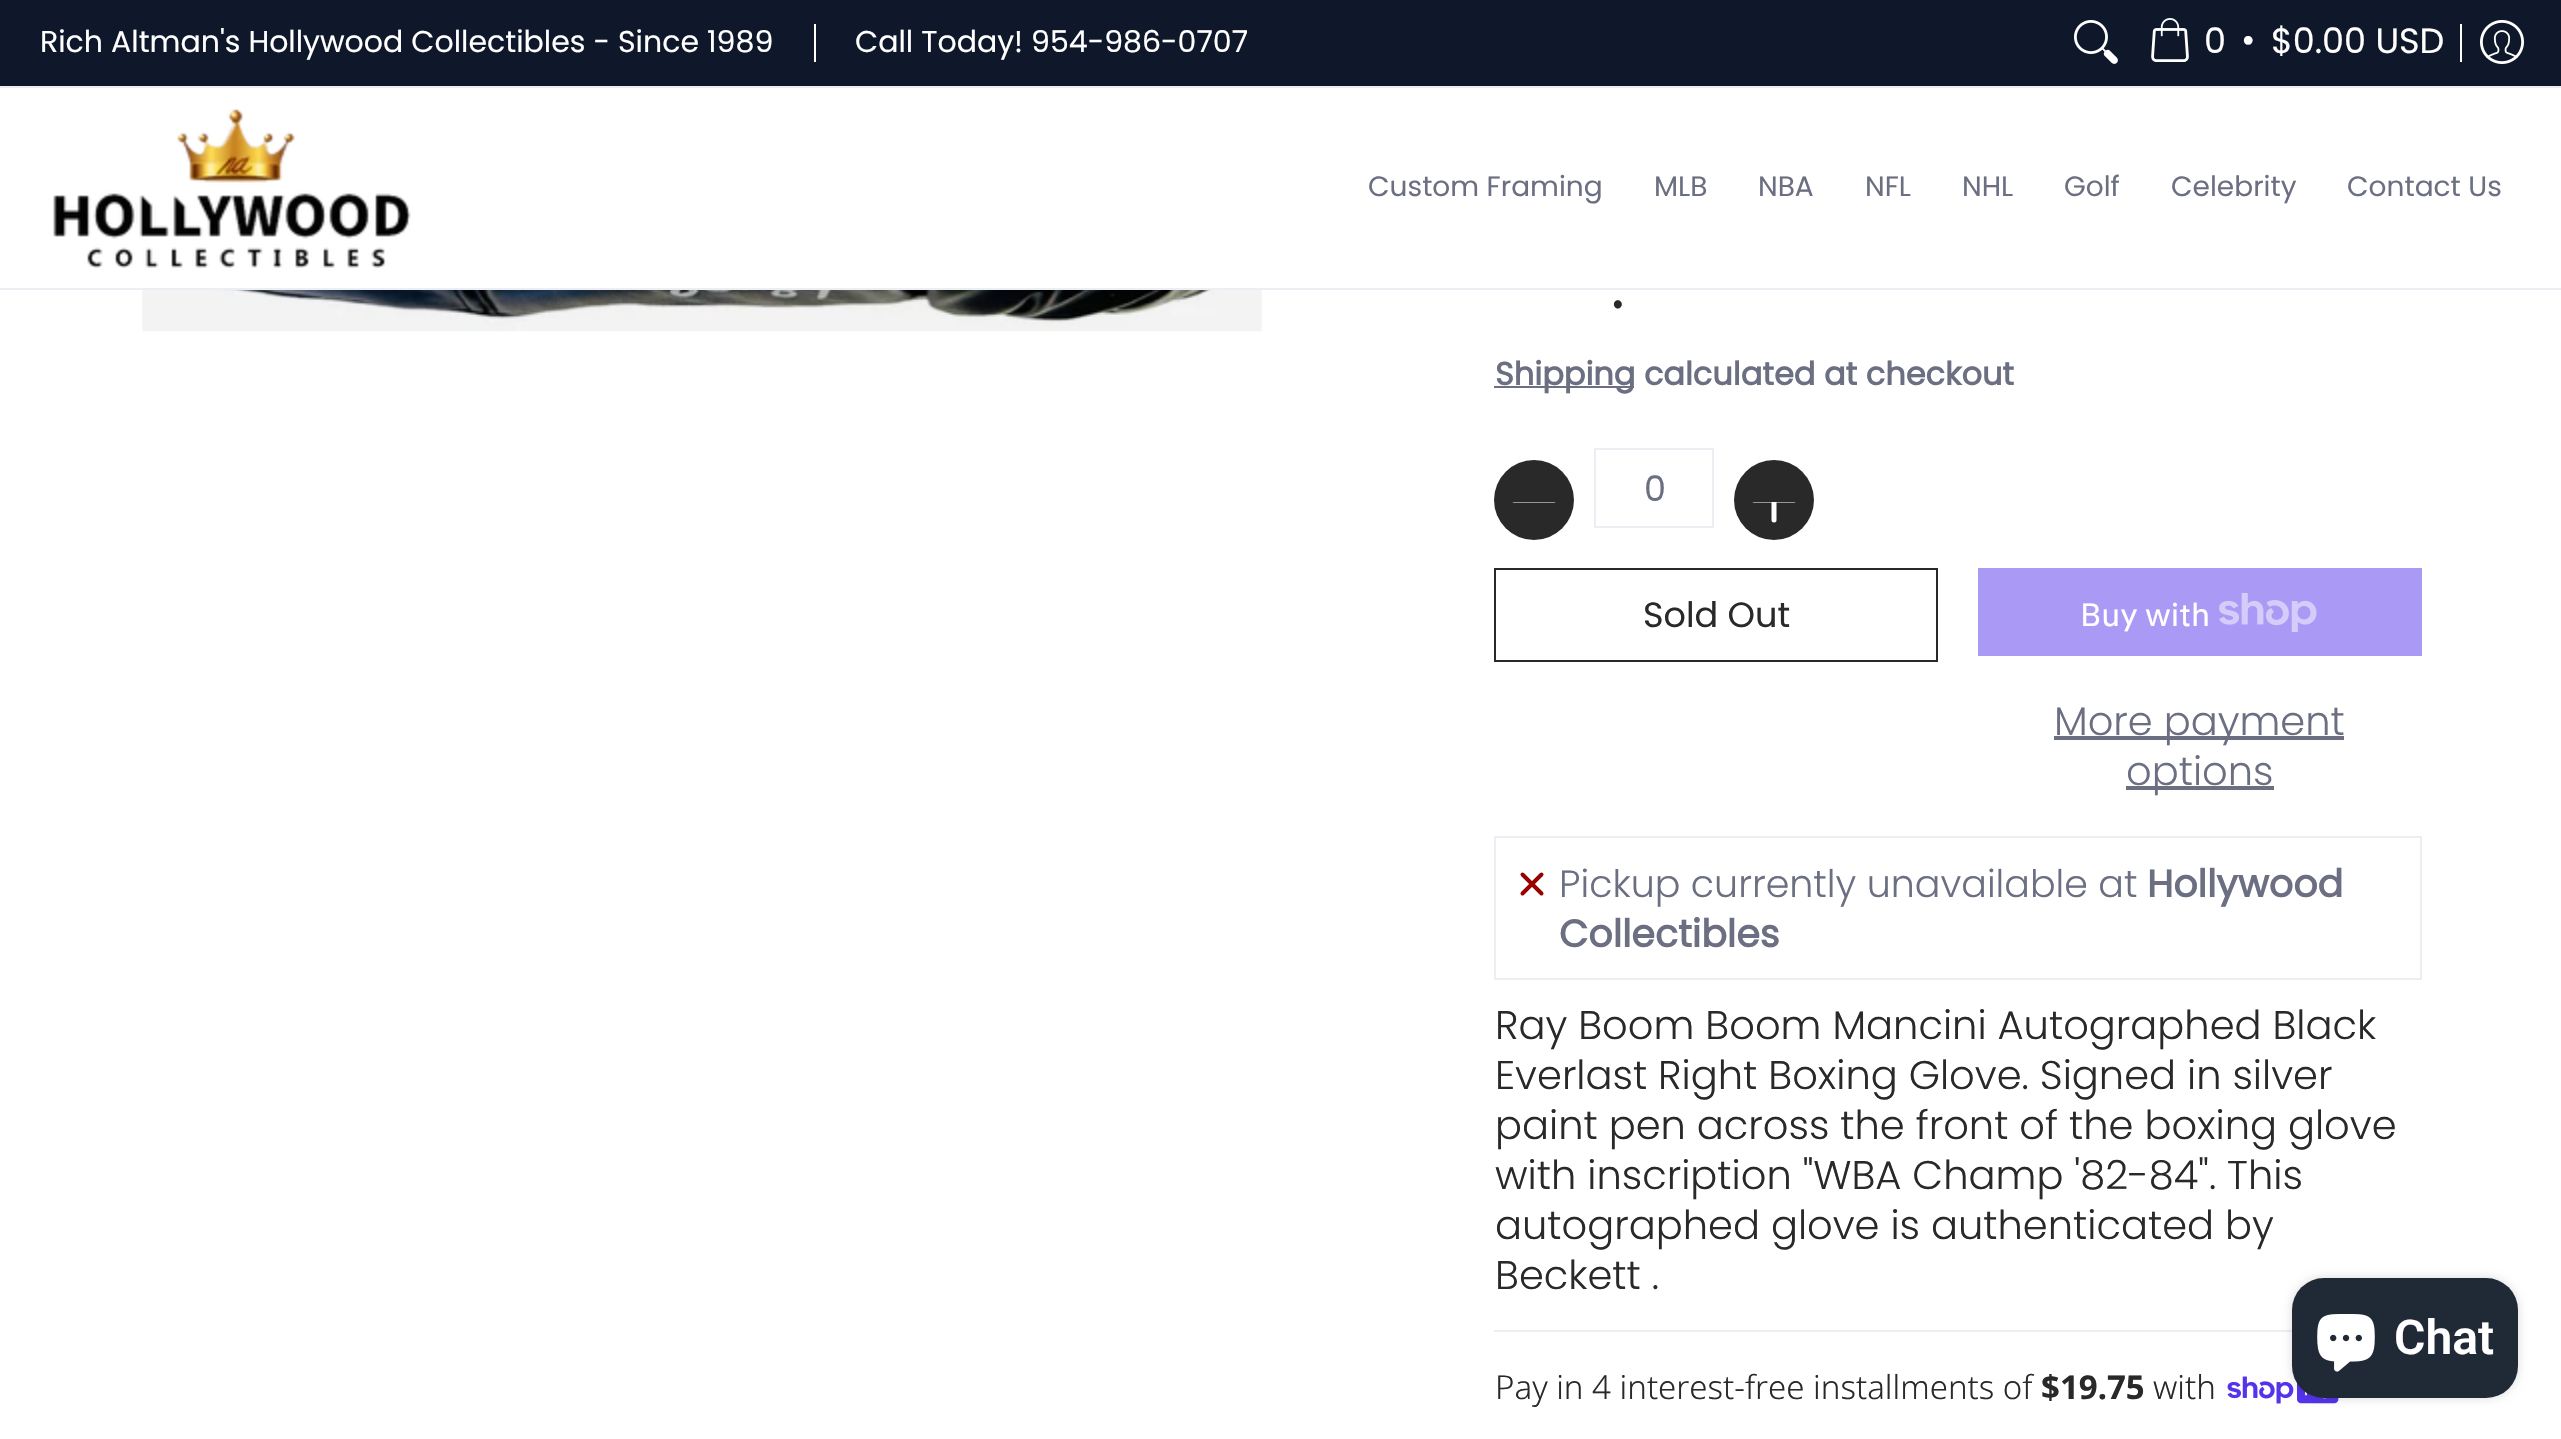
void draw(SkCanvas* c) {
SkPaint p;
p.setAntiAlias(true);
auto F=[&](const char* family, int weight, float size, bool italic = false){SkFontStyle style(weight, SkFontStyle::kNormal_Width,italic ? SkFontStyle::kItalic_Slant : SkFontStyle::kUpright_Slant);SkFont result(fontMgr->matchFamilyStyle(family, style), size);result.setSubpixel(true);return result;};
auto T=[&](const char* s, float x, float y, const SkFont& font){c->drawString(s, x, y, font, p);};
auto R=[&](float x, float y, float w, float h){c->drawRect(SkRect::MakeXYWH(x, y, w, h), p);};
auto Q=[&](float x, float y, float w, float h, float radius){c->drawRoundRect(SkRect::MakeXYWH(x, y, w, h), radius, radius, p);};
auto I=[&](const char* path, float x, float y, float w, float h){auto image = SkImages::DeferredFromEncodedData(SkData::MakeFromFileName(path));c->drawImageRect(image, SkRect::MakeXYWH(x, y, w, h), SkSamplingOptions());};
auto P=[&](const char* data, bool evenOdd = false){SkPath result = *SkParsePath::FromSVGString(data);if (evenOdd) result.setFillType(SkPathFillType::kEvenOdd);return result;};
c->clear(0xffffffff);
p.setColor(0xff0f172a);
R(0,0,2561,86);
p.setColor(0xffedeef4);
R(0,86,2561,2);
auto f1 = F("Poppins",400,30);
p.setColor(0xffffffff);
T("Rich Altman's Hollywood Collectibles - Since 1989",40,52,f1);
R(814,24,2,38);
T("Call Today! 954-986-0707",855,52,f1);
I("1.png",2074,20,44,44);
I("2.png",2151,18,38,44);
auto f2 = F("Poppins",400,35);
T("0",2204,53,f2);
T("•",2241,52,f2);
T("$0.00 USD",2271,53,f2);
R(2460,24,2,38);
I("3.png",2480,20,44,44);
p.setColor(0xffedeef4);
R(0,288,2561,2);
I("4.png",53,109,358,159);
auto f3 = F("Poppins",400,28);
p.setColor(0xff6b6f81);
T("Custom Framing",1368,196,f3);
T("MLB",1654,196,f3);
T("NBA",1758,196,f3);
T("NFL",1865,196,f3);
T("NHL",1962,196,f3);
T("Golf",2064,196,f3);
T("Celebrity",2171,196,f3);
T("Contact Us",2347,196,f3);
I("5.png",142,290,1120,42);
auto f4 = F("Poppins",400,65);
p.setColor(0xff292929);
T(".",1611,308,f4);
p.setColor(0xff6b6f81);
R(1494,386,140,2);
auto f5 = F("Poppins",700,32);
T("Shipping calculated at checkout",1495,385,f5);
p.setColor(0xff292929);
c->drawCircle(1534,500,40,p);
I("6.png",1512,502,44,1);
p.setStroke(true);
p.setStrokeWidth(2);
p.setColor(0xffedeef4);
c->drawRect(SkRect::MakeXYWH(1595,449,118,78),p);
p.setStroke(false);
p.setColor(0xff6b6f81);
T("0",1644,501,f2);
p.setColor(0xff292929);
c->drawCircle(1774,500,40,p);
I("7.png",1752,502,44,21);
p.setStroke(true);
c->drawRect(SkRect::MakeXYWH(1495,569,442,92),p);
p.setStroke(false);
T("Sold Out",1643,627,f2);
p.setColor(0xffaa99f5);
R(1978,568,444,88);
auto f6 = F("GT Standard",400,32);
p.setColor(0xffffffff);
T("Buy with",2080,626,f6);
I("8.png",2219,593,98,39);
p.setColor(0xff6b6f81);
R(2054,736,290,4);
auto f7 = F("Poppins",300,40);
T("More payment",2054,735,f7);
R(2126,786,148,4);
T("options",2126,785,f7);
p.setStroke(true);
p.setColor(0xffedeef4);
c->drawRect(SkRect::MakeXYWH(1495,837,926,142),p);
p.setStrokeWidth(4);
p.setStrokeCap(SkPaint::kRound_Cap);
p.setStrokeJoin(SkPaint::kRound_Join);
p.setColor(0xff990000);
c->drawPath(P("M1522.5 874.5l19 19m0-19l-19 19"),p);
auto f8 = F("Poppins",300,38);
p.setStroke(false);
p.setColor(0xff6b6f81);
T("Pickup currently unavailable at",1559,897,f8);
auto f9 = F("Poppins",700,38);
T("Hollywood",2147,897,f9);
T("Collectibles",1559,947,f9);
p.setColor(0xffedeef4);
R(1494,1330,798,2);
p.setColor(0xff292929);
T("Ray Boom Boom Mancini Autographed Black",1495,1039,f7);
T("Everlast Right Boxing Glove. Signed in silver",1495,1089,f7);
T("paint pen across the front of the boxing glove",1495,1139,f7);
T("with inscription \"WBA Champ '82-84\". This",1495,1189,f7);
T("autographed glove is authenticated by",1495,1239,f7);
T("Beckett .",1495,1289,f7);
auto f10 = F("Noto Sans",300,33);
T("Pay in 4 interest-free installments of",1495,1399,f10);
auto f11 = F("Noto Sans",700,33);
T("$19.75",2041,1399,f11);
T("with",2153,1399,f10);
I("9.png",2227,1376,112,28);
p.setColor(0x26000000);
p.setMaskFilter(SkMaskFilter::MakeBlur(kNormal_SkBlurStyle, 5));
c->drawRoundRect(SkRect::MakeXYWH(2292,1278,226,120),32,32,p);
p.setMaskFilter(nullptr);
p.setColor(0xff202a36);
Q(2292,1278,226,120,32);
I("10.png",2317,1314,58,58);
auto f12 = F("Roboto",600,48);
p.setColor(0xffffffff);
T("Chat",2394,1354,f12);
}
